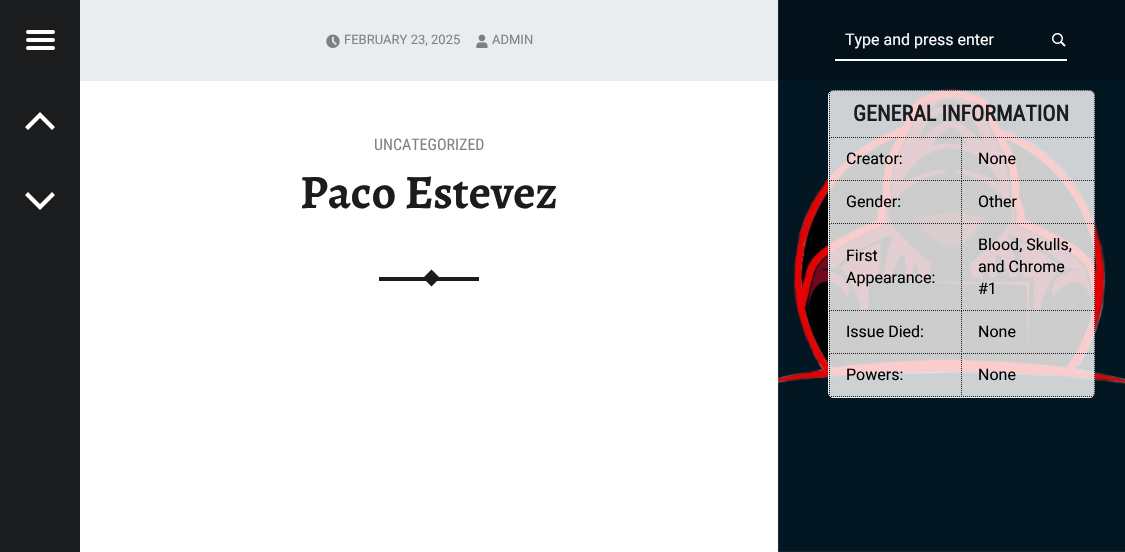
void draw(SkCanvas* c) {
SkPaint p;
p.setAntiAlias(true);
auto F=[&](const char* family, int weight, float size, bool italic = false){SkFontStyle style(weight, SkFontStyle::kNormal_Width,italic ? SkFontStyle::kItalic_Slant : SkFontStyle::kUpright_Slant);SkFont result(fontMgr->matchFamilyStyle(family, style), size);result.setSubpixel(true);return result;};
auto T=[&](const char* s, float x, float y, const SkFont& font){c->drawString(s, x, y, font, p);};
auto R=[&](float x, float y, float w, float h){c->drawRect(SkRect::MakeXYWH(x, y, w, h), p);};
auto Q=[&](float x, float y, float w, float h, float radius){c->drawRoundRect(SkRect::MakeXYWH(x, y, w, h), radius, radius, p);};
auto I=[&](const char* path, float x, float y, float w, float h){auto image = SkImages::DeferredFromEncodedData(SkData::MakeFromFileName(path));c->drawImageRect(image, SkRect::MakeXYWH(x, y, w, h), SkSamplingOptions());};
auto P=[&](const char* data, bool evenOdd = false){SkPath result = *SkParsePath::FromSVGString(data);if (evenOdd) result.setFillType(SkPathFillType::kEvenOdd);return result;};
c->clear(0xffffffff);
p.setColor(0xff1a1c1e);
R(0,0,80,552);
p.setColor(0xffffffff);
Q(26,30,29,4,2);
Q(26,38,29,4,2);
Q(26,46,29,4,2);
c->drawPath(P("M40 112l15 15l-3 3l-12-12l-12 12l-3-3z"),p);
c->drawPath(P("M40 210l-15-15l3-3l12 12l12-12l3 3z"),p);
I("4.png",777,0,348,552);
p.setColor(0x40000000);
R(778,0,347,80);
p.setColor(0xffffffff);
R(835,59,232,2);
auto f1 = F("Roboto",400,16);
T("Type and press enter",845,45,f1);
I("1.png",1052,33,14,14);
p.setColor(0xffeaecee);
R(80,0,698,81);
I("2.png",326,34,14,14);
auto f2 = F("Roboto",400,13);
p.setColor(0xff808284);
T("FEBRUARY 23, 2025",344,44,f2);
I("3.png",476,34,12,14);
T("ADMIN",492,44,f2);
auto f3 = F("Roboto Condensed",400,16);
T("UNCATEGORIZED",374,150,f3);
auto f4 = F("Alegreya",700,48);
p.setColor(0xff1a1c1e);
T("Paco Estevez",300,208,f4);
R(379,277,100,4);
c->drawPath(P("M431.5 269.5l8.5 8.5l-8.5 8.5l-8.5-8.5z"),p);
p.setColor(0xccffffff);
Q(828,90,267,308,6);
p.setStroke(true);
p.setStrokeWidth(1);
p.setColor(0xff1a1c1e);
p.setPathEffect(SkDashPathEffect::Make({{1,1}}, 0));
c->drawPath(P("M830 92c1-1 2.5-1.5 4-1.5h255c1.5 0 3 .5 4 1.5c1 1 1.5 2.5 1.5 4v296c0 1.5-.5 3-1.5 4"),p);
p.setPathEffect(nullptr);
p.setColor(0xffeaecee);
c->drawPath(P("M1093 396c-1 1-2.5 1.5-4 1.5h-255c-1.5 0-3-.5-4-1.5c-1-1-1.5-2.5-1.5-4v-296c0-1.5 .5-3 1.5-4"),p);
p.setColor(0xff1a1c1e);
p.setPathEffect(SkDashPathEffect::Make({{1,1}}, 0));
c->drawPath(P("M829 137.5h265"),p);
p.setPathEffect(nullptr);
p.setPathEffect(SkDashPathEffect::Make({{1,1}}, 0));
c->drawPath(P("M829.5 91v47"),p);
p.setPathEffect(nullptr);
auto f5 = F("Roboto Condensed",700,22);
p.setStroke(false);
T("GENERAL INFORMATION",853,121,f5);
p.setStroke(true);
p.setPathEffect(SkDashPathEffect::Make({{1,1}}, 0));
c->drawPath(P("M829 180.5h132"),p);
p.setPathEffect(nullptr);
p.setPathEffect(SkDashPathEffect::Make({{1,1}}, 0));
c->drawPath(P("M829.5 138v43"),p);
p.setPathEffect(nullptr);
p.setStroke(false);
p.setColor(0xff000000);
T("Creator:",846,164,f1);
p.setStroke(true);
p.setColor(0xff1a1c1e);
p.setPathEffect(SkDashPathEffect::Make({{1,1}}, 0));
c->drawPath(P("M961 180.5h133"),p);
p.setPathEffect(nullptr);
p.setPathEffect(SkDashPathEffect::Make({{1,1}}, 0));
c->drawPath(P("M961.5 138v43"),p);
p.setPathEffect(nullptr);
p.setStroke(false);
p.setColor(0xff000000);
T("None",978,164,f1);
p.setStroke(true);
p.setColor(0xff1a1c1e);
p.setPathEffect(SkDashPathEffect::Make({{1,1}}, 0));
c->drawPath(P("M829 223.5h132"),p);
p.setPathEffect(nullptr);
p.setPathEffect(SkDashPathEffect::Make({{1,1}}, 0));
c->drawPath(P("M829.5 181v43"),p);
p.setPathEffect(nullptr);
p.setStroke(false);
p.setColor(0xff000000);
T("Gender:",846,207,f1);
p.setStroke(true);
p.setColor(0xff1a1c1e);
p.setPathEffect(SkDashPathEffect::Make({{1,1}}, 0));
c->drawPath(P("M961 223.5h133"),p);
p.setPathEffect(nullptr);
p.setPathEffect(SkDashPathEffect::Make({{1,1}}, 0));
c->drawPath(P("M961.5 181v43"),p);
p.setPathEffect(nullptr);
p.setStroke(false);
p.setColor(0xff000000);
T("Other",978,207,f1);
p.setStroke(true);
p.setColor(0xff1a1c1e);
p.setPathEffect(SkDashPathEffect::Make({{1,1}}, 0));
c->drawPath(P("M829 310.5h132"),p);
p.setPathEffect(nullptr);
p.setPathEffect(SkDashPathEffect::Make({{1,1}}, 0));
c->drawPath(P("M829.5 224v87"),p);
p.setPathEffect(nullptr);
p.setStroke(false);
p.setColor(0xff000000);
T("First",846,261,f1);
T("Appearance:",846,283,f1);
p.setStroke(true);
p.setColor(0xff1a1c1e);
p.setPathEffect(SkDashPathEffect::Make({{1,1}}, 0));
c->drawPath(P("M961 310.5h133"),p);
p.setPathEffect(nullptr);
p.setPathEffect(SkDashPathEffect::Make({{1,1}}, 0));
c->drawPath(P("M961.5 224v87"),p);
p.setPathEffect(nullptr);
p.setStroke(false);
p.setColor(0xff000000);
T("Blood, Skulls,",978,250,f1);
T("and Chrome",978,272,f1);
T("#1",978,294,f1);
p.setStroke(true);
p.setColor(0xff1a1c1e);
p.setPathEffect(SkDashPathEffect::Make({{1,1}}, 0));
c->drawPath(P("M829 353.5h132"),p);
p.setPathEffect(nullptr);
p.setPathEffect(SkDashPathEffect::Make({{1,1}}, 0));
c->drawPath(P("M829.5 311v43"),p);
p.setPathEffect(nullptr);
p.setStroke(false);
p.setColor(0xff000000);
T("Issue Died:",846,337,f1);
p.setStroke(true);
p.setColor(0xff1a1c1e);
p.setPathEffect(SkDashPathEffect::Make({{1,1}}, 0));
c->drawPath(P("M961 353.5h133"),p);
p.setPathEffect(nullptr);
p.setPathEffect(SkDashPathEffect::Make({{1,1}}, 0));
c->drawPath(P("M961.5 311v43"),p);
p.setPathEffect(nullptr);
p.setStroke(false);
p.setColor(0xff000000);
T("None",978,337,f1);
p.setStroke(true);
p.setColor(0xff1a1c1e);
p.setPathEffect(SkDashPathEffect::Make({{1,1}}, 0));
c->drawPath(P("M829 396.5h132"),p);
p.setPathEffect(nullptr);
p.setPathEffect(SkDashPathEffect::Make({{1,1}}, 0));
c->drawPath(P("M829.5 354v43"),p);
p.setPathEffect(nullptr);
p.setStroke(false);
p.setColor(0xff000000);
T("Powers:",846,380,f1);
p.setStroke(true);
p.setColor(0xff1a1c1e);
p.setPathEffect(SkDashPathEffect::Make({{1,1}}, 0));
c->drawPath(P("M961 396.5h133"),p);
p.setPathEffect(nullptr);
p.setPathEffect(SkDashPathEffect::Make({{1,1}}, 0));
c->drawPath(P("M961.5 354v43"),p);
p.setPathEffect(nullptr);
p.setStroke(false);
p.setColor(0xff000000);
T("None",978,380,f1);
}
